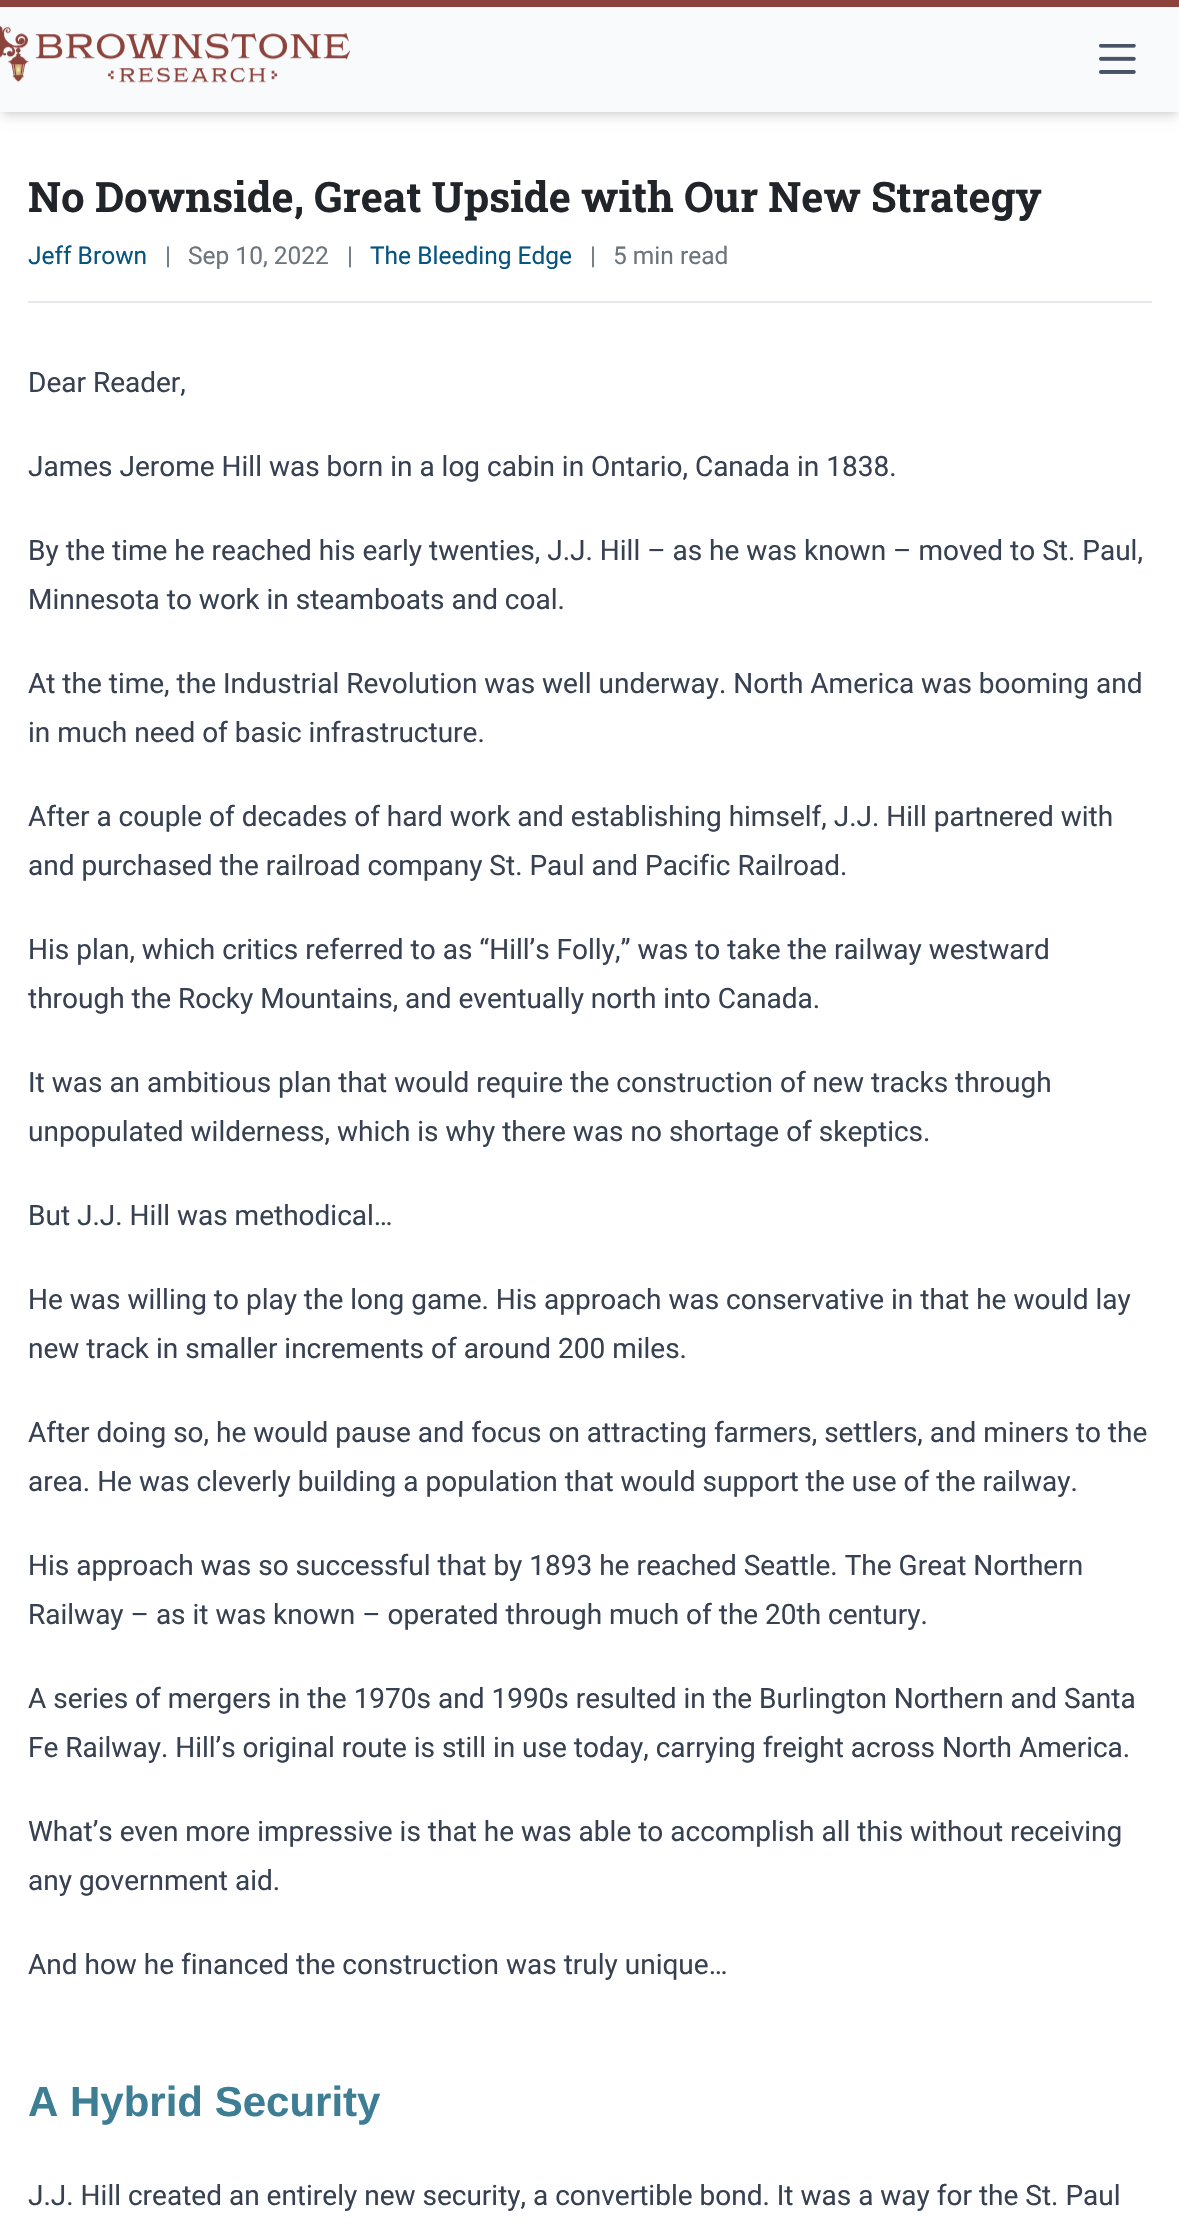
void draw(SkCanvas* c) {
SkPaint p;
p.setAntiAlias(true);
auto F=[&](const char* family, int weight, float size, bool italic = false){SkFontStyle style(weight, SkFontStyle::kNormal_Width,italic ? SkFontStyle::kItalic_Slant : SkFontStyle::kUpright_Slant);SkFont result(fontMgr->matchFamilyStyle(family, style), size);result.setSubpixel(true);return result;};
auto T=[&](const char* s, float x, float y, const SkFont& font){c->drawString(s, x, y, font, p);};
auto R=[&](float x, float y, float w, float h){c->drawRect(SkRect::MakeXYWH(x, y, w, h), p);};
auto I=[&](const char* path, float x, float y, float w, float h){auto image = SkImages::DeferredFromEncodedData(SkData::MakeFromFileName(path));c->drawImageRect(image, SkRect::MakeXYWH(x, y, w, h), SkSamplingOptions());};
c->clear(0xffffffff);
p.setColor(0x1a000000);
p.setMaskFilter(SkMaskFilter::MakeBlur(kNormal_SkBlurStyle, 3.5));
c->drawRect(SkRect::MakeXYWH(4,7,1172,105),p);
p.setMaskFilter(nullptr);
p.setMaskFilter(SkMaskFilter::MakeBlur(kNormal_SkBlurStyle, 5));
c->drawRect(SkRect::MakeXYWH(2,9,1176,108),p);
p.setMaskFilter(nullptr);
p.setColor(0xfff9fafb);
R(0,7,1179,105);
p.setColor(0xff8c433c);
R(0,0,1179,7);
I("1.png",0,26,350,57);
I("2.png",1099,44,37,30);
p.setColor(0xffe5e7eb);
R(28,301,1124,2);
auto f1 = F("Roboto Slab",700,42);
p.setColor(0xff212529);
T("No Downside, Great Upside with Our New Strategy",28,212,f1);
auto f2 = F("Roboto",400,24.5);
p.setColor(0xff07547e);
T("Jeff Brown",28,264,f2);
p.setColor(0xff6c757d);
T("|",165,264,f2);
T("Sep 10, 2022",188,264,f2);
T("|",347,264,f2);
p.setColor(0xff07547e);
T("The Bleeding Edge",370,264,f2);
p.setColor(0xff6c757d);
T("|",590,264,f2);
T("5 min read",613,264,f2);
auto f3 = F("Roboto",400,28);
p.setColor(0xff374151);
T("Dear Reader,",28,392,f3);
T("James Jerome Hill was born in a log cabin in Ontario, Canada in 1838.",28,476,f3);
T("By the time he reached his early twenties, J.J. Hill – as he was known – moved to St. Paul,",28,560,f3);
T("Minnesota to work in steamboats and coal.",28,609,f3);
T("At the time, the Industrial Revolution was well underway. North America was booming and",28,693,f3);
T("in much need of basic infrastructure.",28,742,f3);
T("After a couple of decades of hard work and establishing himself, J.J. Hill partnered with",28,826,f3);
T("and purchased the railroad company St. Paul and Pacific Railroad.",28,875,f3);
T("His plan, which critics referred to as “Hill’s Folly,” was to take the railway westward",28,959,f3);
T("through the Rocky Mountains, and eventually north into Canada.",28,1008,f3);
T("It was an ambitious plan that would require the construction of new tracks through",28,1092,f3);
T("unpopulated wilderness, which is why there was no shortage of skeptics.",28,1141,f3);
T("But J.J. Hill was methodical…",28,1225,f3);
T("He was willing to play the long game. His approach was conservative in that he would lay",28,1309,f3);
T("new track in smaller increments of around 200 miles.",28,1358,f3);
T("After doing so, he would pause and focus on attracting farmers, settlers, and miners to the",28,1442,f3);
T("area. He was cleverly building a population that would support the use of the railway.",28,1491,f3);
T("His approach was so successful that by 1893 he reached Seattle. The Great Northern",28,1575,f3);
T("Railway – as it was known – operated through much of the 20th century.",28,1624,f3);
T("A series of mergers in the 1970s and 1990s resulted in the Burlington Northern and Santa",28,1708,f3);
T("Fe Railway. Hill’s original route is still in use today, carrying freight across North America.",28,1757,f3);
T("What’s even more impressive is that he was able to accomplish all this without receiving",28,1841,f3);
T("any government aid.",28,1890,f3);
T("And how he financed the construction was truly unique…",28,1974,f3);
auto f4 = F("Liberation Sans",700,42);
p.setColor(0xff3e7e95);
T("A Hybrid Security",28,2116,f4);
p.setColor(0xff374151);
T("J.J. Hill created an entirely new security, a convertible bond. It was a way for the St. Paul",28,2205,f3);
}
